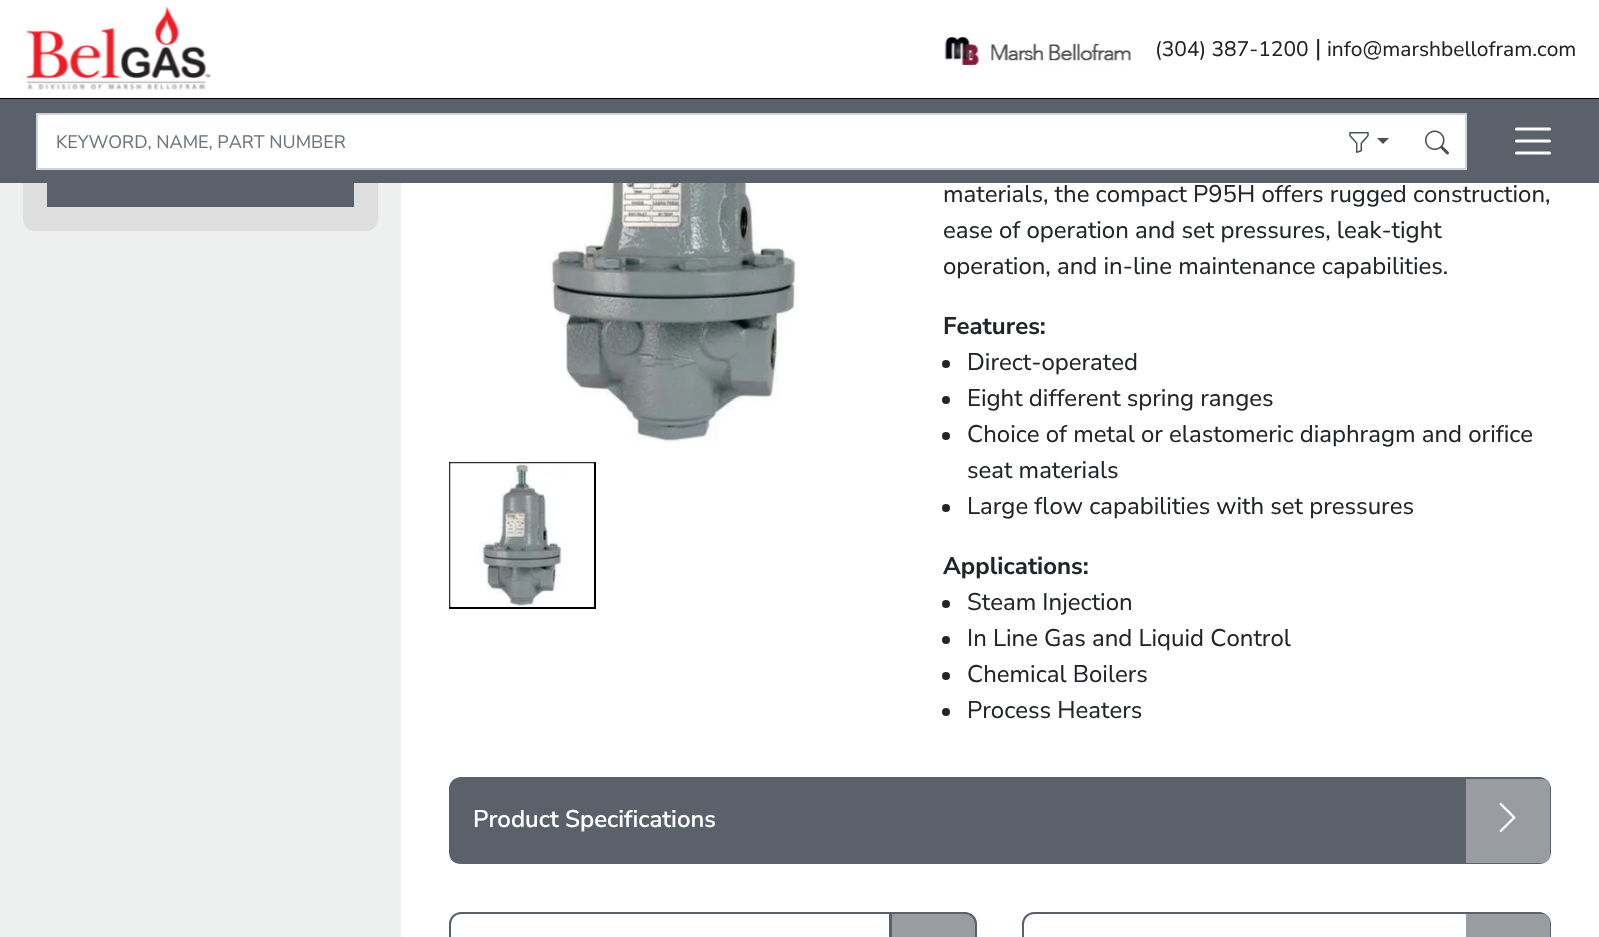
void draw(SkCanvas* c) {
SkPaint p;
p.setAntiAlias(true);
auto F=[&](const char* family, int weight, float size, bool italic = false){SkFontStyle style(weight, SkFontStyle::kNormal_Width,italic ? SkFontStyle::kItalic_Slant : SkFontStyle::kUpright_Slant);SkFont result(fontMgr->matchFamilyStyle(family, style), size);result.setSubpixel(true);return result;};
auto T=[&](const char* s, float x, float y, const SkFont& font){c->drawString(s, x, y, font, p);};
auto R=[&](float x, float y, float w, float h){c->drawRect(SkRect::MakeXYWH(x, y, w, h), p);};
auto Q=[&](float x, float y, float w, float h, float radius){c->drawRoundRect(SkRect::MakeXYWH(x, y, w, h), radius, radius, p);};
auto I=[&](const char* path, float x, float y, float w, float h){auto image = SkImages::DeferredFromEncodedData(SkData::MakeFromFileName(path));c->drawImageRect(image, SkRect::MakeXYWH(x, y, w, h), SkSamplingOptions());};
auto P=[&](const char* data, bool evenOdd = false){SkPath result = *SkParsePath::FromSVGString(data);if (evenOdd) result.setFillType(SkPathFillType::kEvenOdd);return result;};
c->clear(0xffeeefef);
p.setColor(0xffdedede);
Q(23,-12,355,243,12);
p.setColor(0xffffffff);
R(0,0,1599,98);
p.setColor(0xff000000);
R(0,98,1599,1);
I("1.png",26,7,185,83);
I("2.png",944,35,187,31);
auto f1 = F("Nunito Sans",400,21);
p.setColor(0xff212529);
T("(304) 387-1200",1155,56,f1);
auto f2 = F("Nunito Sans",400,24);
T("|",1315,56,f2);
T("info@marshbellofram.com",1327,56,f1);
p.setColor(0xff5b616a);
R(0,99,1599,84);
p.setColor(0xffffffff);
c->drawRect(SkRect::MakeXYWH(37,114,1429,55),p);
p.setStroke(true);
p.setStrokeWidth(2);
p.setColor(0xffced4da);
c->drawRect(SkRect::MakeXYWH(37,114,1429,55),p);
auto f3 = F("Nunito Sans",400,18);
p.setStroke(false);
p.setColor(0xff6c757d);
T("KEYWORD, NAME, PART NUMBER",56,148,f3);
I("3.png",1349,132,20,21);
p.setColor(0xff495057);
c->drawPath(P("M1377 138h12l-6 6z"),p);
I("4.png",1425,130,24,25);
p.setStroke(true);
p.setStrokeWidth(3);
p.setStrokeCap(SkPaint::kRound_Cap);
p.setColor(0xffffffff);
c->drawPath(P("M1516.5 129h33m-33 12h33m-33 12h33"),p);
p.setStroke(false);
p.setColor(0xff5b616a);
R(47,183,307,24);
p.setColor(0xffffffff);
R(401,183,1198,754);
I("5.png",548,183,250,260);
p.setStroke(true);
p.setStrokeWidth(2);
p.setStrokeCap(SkPaint::kButt_Cap);
p.setColor(0xff000000);
c->drawRect(SkRect::MakeXYWH(450,463,145,145),p);
I("6.png",449,462,145,145);
p.setStroke(false);
p.setColor(0xff212529);
T("materials, the compact P95H offers rugged construction,",943,202,f2);
T("ease of operation and set pressures, leak-tight",943,238,f2);
T("operation, and in-line maintenance capabilities.",943,274,f2);
auto f4 = F("Nunito Sans",700,24);
T("Features:",943,334,f4);
c->drawCircle(946,364,4,p);
T("Direct-operated",967,370,f2);
c->drawCircle(946,400,4,p);
T("Eight different spring ranges",967,406,f2);
c->drawCircle(946,436,4,p);
T("Choice of metal or elastomeric diaphragm and orifice",967,442,f2);
T("seat materials",967,478,f2);
c->drawCircle(946,508,4,p);
T("Large flow capabilities with set pressures",967,514,f2);
T("Applications:",943,574,f4);
c->drawCircle(946,604,4,p);
T("Steam Injection",967,610,f2);
c->drawCircle(946,640,4,p);
T("In Line Gas and Liquid Control",967,646,f2);
c->drawCircle(946,676,4,p);
T("Chemical Boilers",967,682,f2);
c->drawCircle(946,712,4,p);
T("Process Heaters",967,718,f2);
p.setStroke(true);
p.setColor(0xff5b616a);
c->drawRoundRect(SkRect::MakeXYWH(450,778,1100,85),11,11,p);
p.setStroke(false);
c->drawPath(P("M458 779h1009v84h-1009c-4.5 0-8-3.5-8-8v-68c0-4.5 3.5-8 8-8z"),p);
auto f5 = F("Nunito Sans",600,24);
p.setColor(0xffffffff);
T("Product Specifications",473,827,f5);
p.setColor(0xff999da2);
c->drawPath(P("M1466 779h76c4.5 0 8 3.5 8 8v68c0 4.5-3.5 8-8 8h-76z"),p);
I("7.png",1499,802,17,31);
p.setStroke(true);
p.setColor(0xff5b616a);
c->drawPath(P("M461 913h429v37h-429c-6 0-11-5-11-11v-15c0-6 5-11 11-11z"),p);
p.setStroke(false);
p.setColor(0xff999da2);
c->drawPath(P("M891 913h74c6 0 11 5 11 11v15c0 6-5 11-11 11h-74z"),p);
p.setStroke(true);
p.setColor(0xff5b616a);
c->drawPath(P("M891 913h74c6 0 11 5 11 11v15c0 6-5 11-11 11h-74z"),p);
c->drawRoundRect(SkRect::MakeXYWH(1023,913,527,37),11,11,p);
p.setStroke(false);
p.setColor(0xff999da2);
c->drawPath(P("M1466 914h76c4.5 0 8 3.5 8 8v15c0 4.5-3.5 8-8 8h-76z"),p);
}
